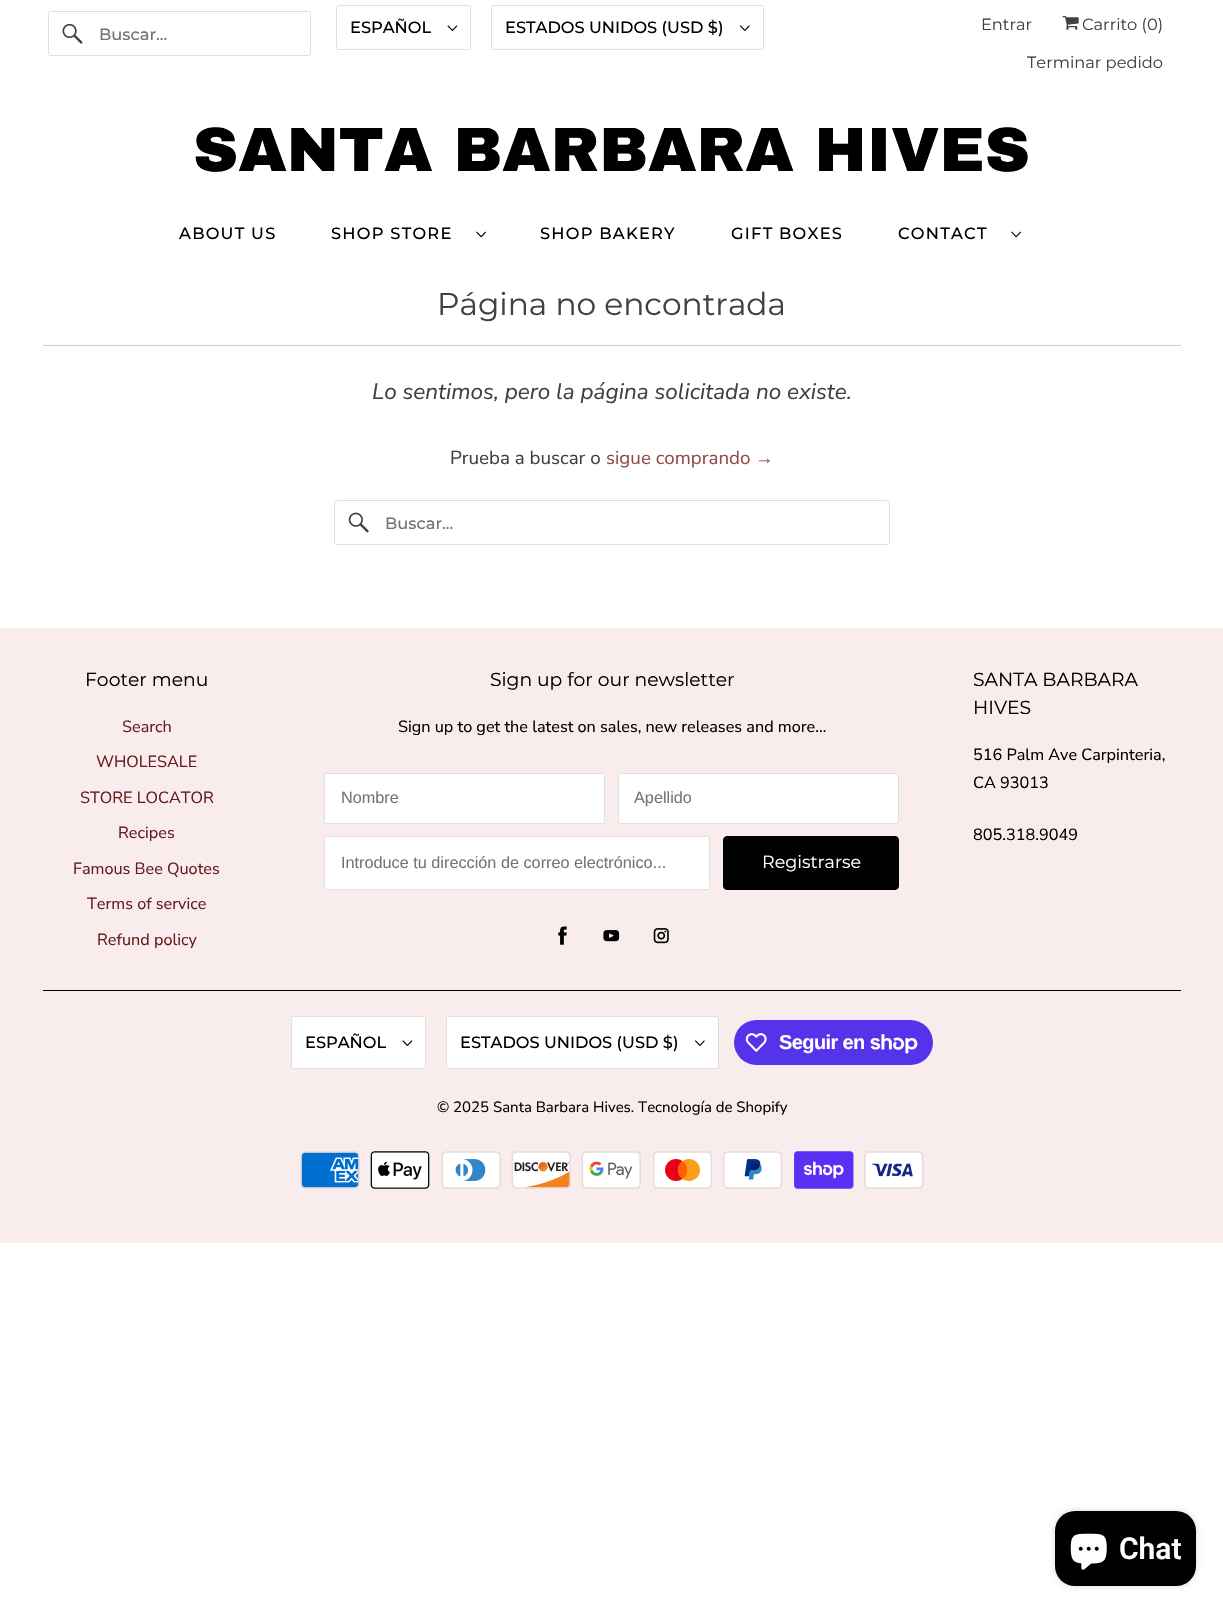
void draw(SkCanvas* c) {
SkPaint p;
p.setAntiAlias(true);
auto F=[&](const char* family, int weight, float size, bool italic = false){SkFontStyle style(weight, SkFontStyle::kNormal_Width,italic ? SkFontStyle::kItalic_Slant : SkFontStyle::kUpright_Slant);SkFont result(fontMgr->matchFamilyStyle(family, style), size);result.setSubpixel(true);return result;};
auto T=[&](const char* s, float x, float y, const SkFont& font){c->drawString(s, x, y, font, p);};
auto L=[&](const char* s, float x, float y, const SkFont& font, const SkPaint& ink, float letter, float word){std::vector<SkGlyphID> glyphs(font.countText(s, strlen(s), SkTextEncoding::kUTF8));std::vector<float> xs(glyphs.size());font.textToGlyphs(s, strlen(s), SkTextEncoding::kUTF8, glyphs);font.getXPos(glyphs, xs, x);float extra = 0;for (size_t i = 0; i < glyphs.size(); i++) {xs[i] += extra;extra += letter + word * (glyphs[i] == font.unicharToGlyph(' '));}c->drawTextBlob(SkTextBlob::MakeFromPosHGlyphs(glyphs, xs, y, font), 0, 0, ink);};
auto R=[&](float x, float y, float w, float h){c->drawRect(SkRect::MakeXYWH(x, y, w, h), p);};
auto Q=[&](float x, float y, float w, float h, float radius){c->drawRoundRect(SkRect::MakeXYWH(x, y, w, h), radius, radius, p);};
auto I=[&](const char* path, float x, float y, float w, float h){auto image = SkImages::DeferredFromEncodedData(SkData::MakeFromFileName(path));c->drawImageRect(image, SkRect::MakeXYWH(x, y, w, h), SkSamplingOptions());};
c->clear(0xffffffff);
p.setStroke(true);
p.setStrokeWidth(1);
p.setColor(0xffdfdfdf);
c->drawRoundRect(SkRect::MakeXYWH(48.5,11.5,262,44),2,2,p);
I("1.png",62,23,21,21);
auto f1 = F("Montserrat",500,16.25);
p.setStroke(false);
p.setColor(0xff757575);
T("Buscar...",99,40,f1);
p.setStroke(true);
p.setColor(0xffdfdfdf);
c->drawRoundRect(SkRect::MakeXYWH(336.5,5.5,134,44),2,2,p);
p.setStroke(false);
p.setColor(0xff000000);
T("ESPAÑOL",350,33,f1);
I("2.png",447,25,11,6);
p.setStroke(true);
p.setColor(0xffdfdfdf);
c->drawRoundRect(SkRect::MakeXYWH(491.5,5.5,272,44),2,2,p);
p.setStroke(false);
p.setColor(0xff000000);
T("ESTADOS UNIDOS (USD $)",505,33,f1);
I("3.png",740,25,10,6);
auto f2 = F("Montserrat",400,16.25);
p.setColor(0xff404040);
T("Entrar",981,30,f2);
I("4.png",1062,16,17,14);
T("Carrito (0)",1082,30,f2);
T("Terminar pedido",1027,68,f2);
auto f3 = F("Archivo Black",400,62.5);
p.setColor(0xff000000);
T("SANTA BARBARA HIVES",193,171,f3);
L("ABOUT US",179,239,f1,p,1.25,0);
L("SHOP STORE",331,239,f1,p,1.25,0);
I("5.png",476,231,10,7);
L("SHOP BAKERY",540,239,f1,p,1.25,0);
L("GIFT BOXES",731,239,f1,p,1.25,0);
L("CONTACT",898,239,f1,p,1.25,0);
I("5.png",1011,231,10,7);
p.setColor(0xffcdcdcd);
R(43,345,1138,1);
auto f4 = F("Montserrat",400,31.25);
p.setColor(0xff404040);
T("Página no encontrada",437,315,f4);
auto f5 = F("Nunito Sans",400,22.5,true);
T("Lo sentimos, pero la página solicitada no existe.",372,399,f5);
auto f6 = F("Nunito Sans",400,18.75);
T("Prueba a buscar o",450,464,f6);
p.setColor(0xff924a4d);
T("sigue comprando",606,464,f6);
auto f7 = F("Liberation Sans",400,18.75);
T("→",755,464,f7);
p.setStroke(true);
p.setColor(0xffdfdfdf);
c->drawRoundRect(SkRect::MakeXYWH(334.5,500.5,555,44),2,2,p);
I("6.png",348,512,21,21);
p.setStroke(false);
p.setColor(0xff757575);
T("Buscar...",385,529,f1);
p.setColor(0xfff8ecec);
R(0,628,1223,615);
auto f8 = F("Montserrat",400,18.75);
p.setColor(0xff000000);
T("Footer menu",85,686,f8);
auto f9 = F("Nunito Sans",400,16.25);
p.setColor(0xff651b1e);
T("Search",122,732,f9);
T("WHOLESALE",96,767,f9);
T("STORE LOCATOR",80,803,f9);
T("Recipes",118,838,f9);
T("Famous Bee Quotes",73,874,f9);
T("Terms of service",87,909,f9);
T("Refund policy",97,945,f9);
p.setColor(0xff000000);
T("Sign up for our newsletter",490,686,f8);
T("Sign up to get the latest on sales, new releases and more…",398,732,f9);
p.setColor(0xffffffff);
c->drawRoundRect(SkRect::MakeXYWH(324.5,773.5,280,50),2,2,p);
p.setStroke(true);
p.setColor(0xffdfdfdf);
c->drawRoundRect(SkRect::MakeXYWH(324.5,773.5,280,50),2,2,p);
auto f10 = F("Liberation Sans",400,16.25);
p.setStroke(false);
p.setColor(0xff757575);
T("Nombre",341,803,f10);
p.setColor(0xffffffff);
c->drawRoundRect(SkRect::MakeXYWH(618.5,773.5,280,50),2,2,p);
p.setStroke(true);
p.setColor(0xffdfdfdf);
c->drawRoundRect(SkRect::MakeXYWH(618.5,773.5,280,50),2,2,p);
p.setStroke(false);
p.setColor(0xff757575);
T("Apellido",634,803,f10);
p.setColor(0xffffffff);
c->drawRoundRect(SkRect::MakeXYWH(324.5,836.5,385,53),2,2,p);
p.setStroke(true);
p.setColor(0xffdfdfdf);
c->drawRoundRect(SkRect::MakeXYWH(324.5,836.5,385,53),2,2,p);
p.setStroke(false);
p.setColor(0xff757575);
T("Introduce tu dirección de correo electrónico...",341,868,f10);
p.setColor(0xff000000);
c->drawRoundRect(SkRect::MakeXYWH(723.5,836.5,175,53),3.5,3.5,p);
p.setStroke(true);
c->drawRoundRect(SkRect::MakeXYWH(723.5,836.5,175,53),3.5,3.5,p);
auto f11 = F("Montserrat",400,17.5);
p.setStroke(false);
p.setColor(0xffffffff);
T("Registrarse",762,868,f11);
I("7.png",558,926,9,19);
I("8.png",603,930,17,12);
I("9.png",653,928,16,16);
p.setColor(0xff000000);
T("SANTA BARBARA",973,686,f8);
T("HIVES",973,714,f8);
T("516 Palm Ave Carpinteria,",973,760,f9);
T("CA 93013",973,788,f9);
T("805.318.9049",973,840,f9);
R(43,990,1138,1);
p.setColor(0xffffffff);
c->drawRoundRect(SkRect::MakeXYWH(291.5,1016.5,134,52),2,2,p);
p.setStroke(true);
p.setColor(0xffdfdfdf);
c->drawRoundRect(SkRect::MakeXYWH(291.5,1016.5,134,52),2,2,p);
p.setStroke(false);
p.setColor(0xff000000);
T("ESPAÑOL",305,1048,f1);
I("2.png",402,1040,11,6);
p.setColor(0xffffffff);
c->drawRoundRect(SkRect::MakeXYWH(446.5,1016.5,272,52),2,2,p);
p.setStroke(true);
p.setColor(0xffdfdfdf);
c->drawRoundRect(SkRect::MakeXYWH(446.5,1016.5,272,52),2,2,p);
p.setStroke(false);
p.setColor(0xff000000);
T("ESTADOS UNIDOS (USD $)",460,1048,f1);
I("3.png",695,1040,10,6);
p.setColor(0xff5433eb);
Q(734,1020,199,45,22.5);
I("10.png",745,1033,22,19);
auto f12 = F("Liberation Sans",700,20);
p.setColor(0xffffffff);
L("Seguir en",779,1049,f12,p,-.6,0);
I("11.png",870,1034,48,20);
auto f13 = F("Nunito Sans",400,15);
p.setColor(0xff000000);
T("© 2025 Santa Barbara Hives. Tecnología de Shopify",437,1112,f13);
I("12.png",300,1151,60,38);
I("13.png",370,1151,60,38);
I("14.png",441,1151,60,38);
I("15.png",511,1151,60,38);
I("16.png",581,1151,60,38);
I("17.png",653,1151,59,38);
I("18.png",723,1151,59,38);
I("19.png",794,1151,60,38);
I("20.png",864,1151,60,38);
p.setColor(0x26000000);
p.setMaskFilter(SkMaskFilter::MakeBlur(kNormal_SkBlurStyle, 3));
c->drawRoundRect(SkRect::MakeXYWH(1055,1511,141,75),20,20,p);
p.setMaskFilter(nullptr);
p.setColor(0xff000000);
Q(1055,1511,141,75,20);
I("21.png",1070,1533,37,37);
auto f14 = F("Roboto",600,30);
p.setColor(0xffffffff);
T("Chat",1119,1559,f14);
}
